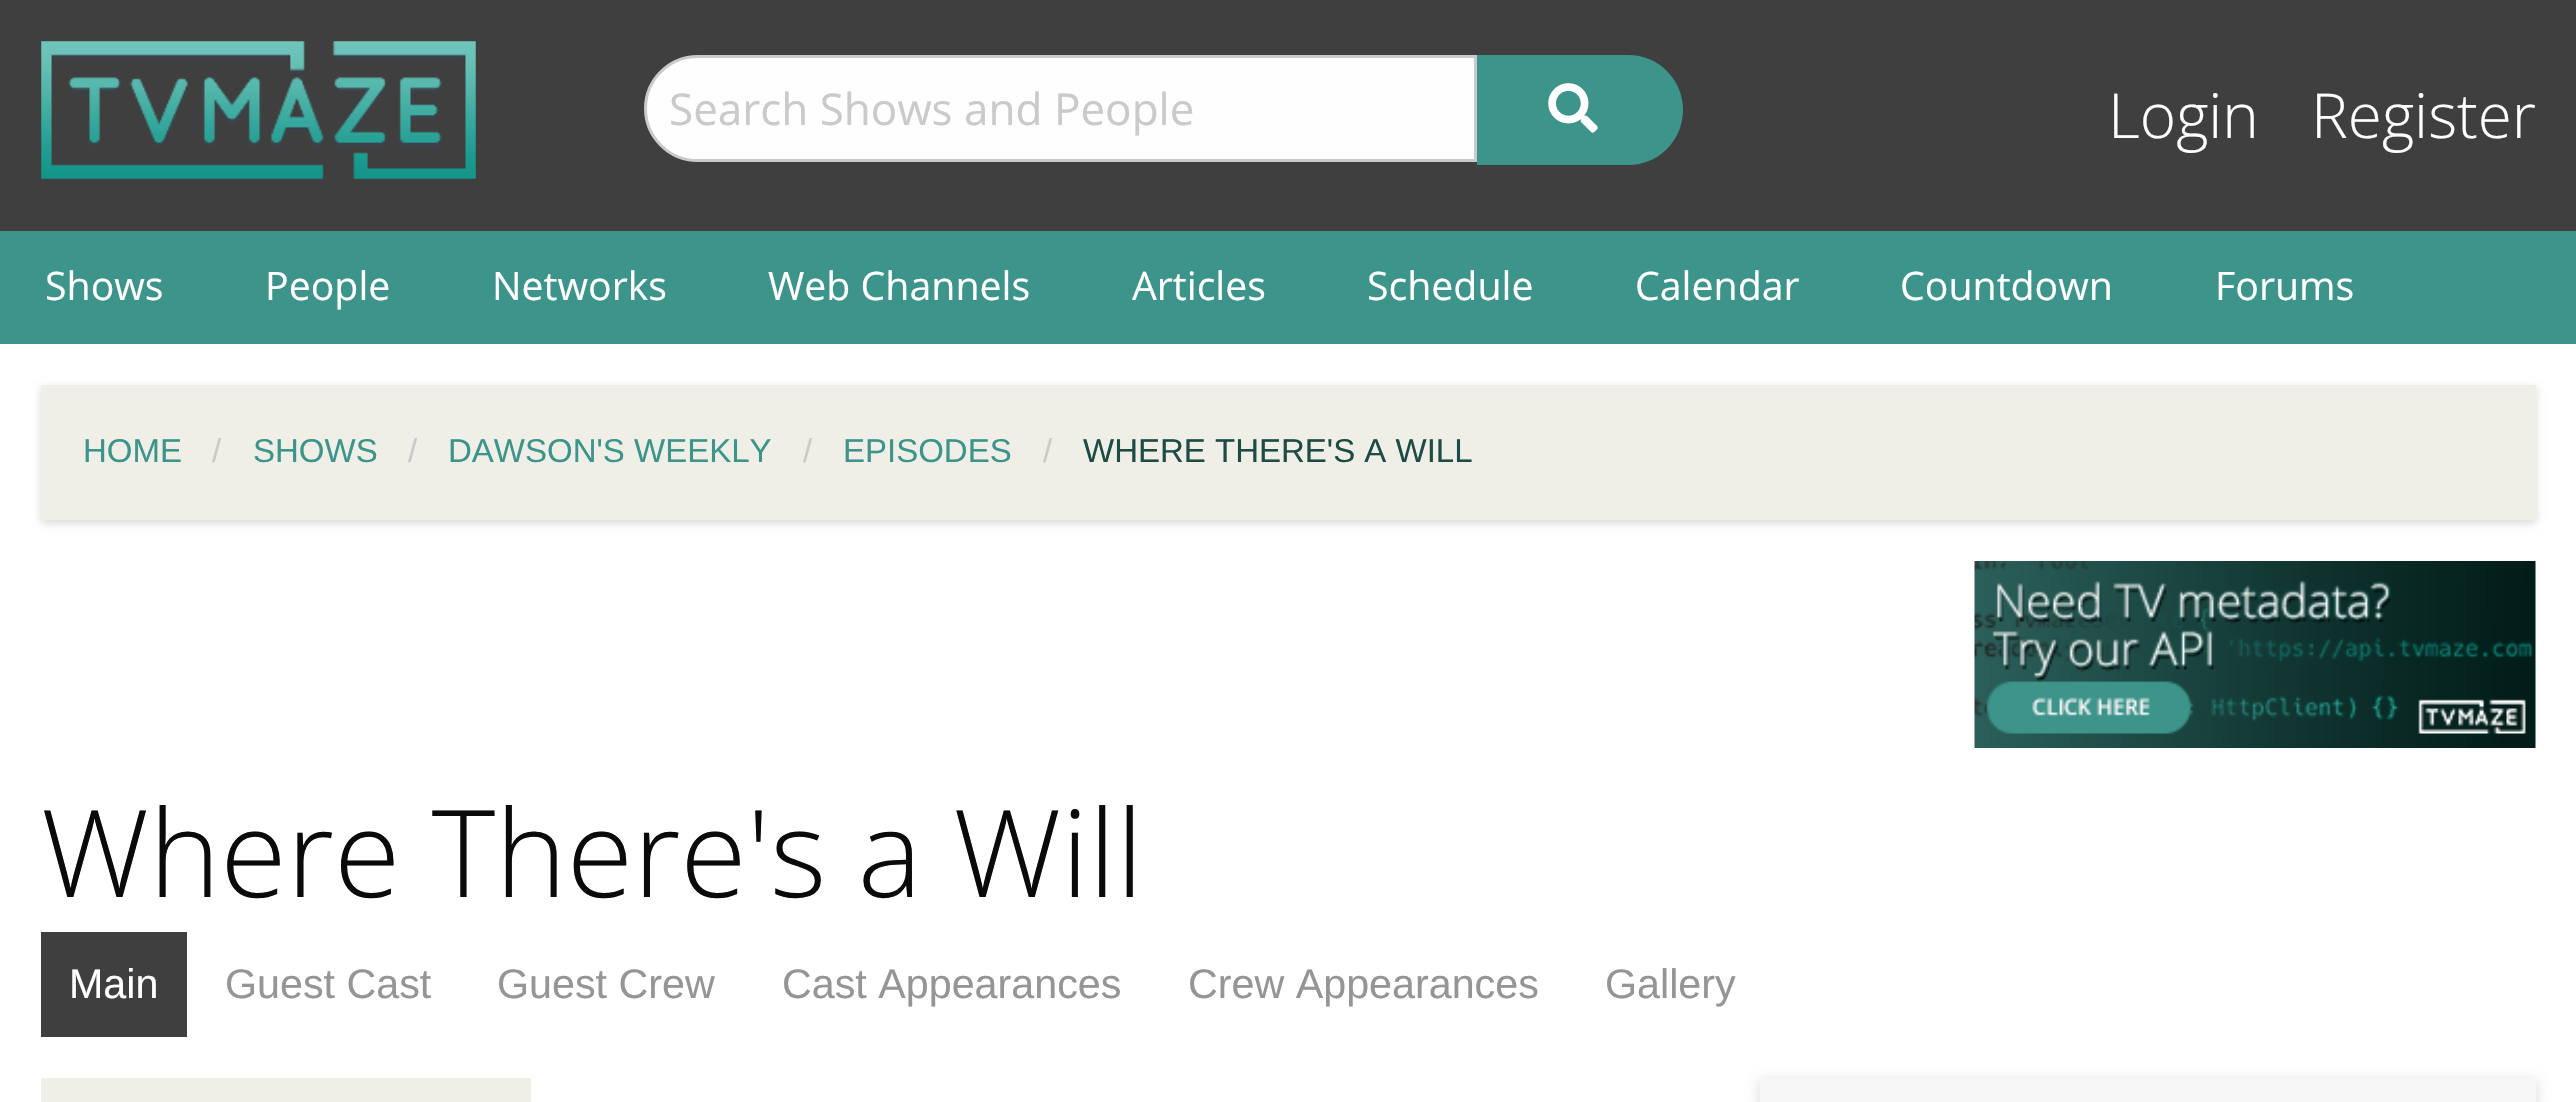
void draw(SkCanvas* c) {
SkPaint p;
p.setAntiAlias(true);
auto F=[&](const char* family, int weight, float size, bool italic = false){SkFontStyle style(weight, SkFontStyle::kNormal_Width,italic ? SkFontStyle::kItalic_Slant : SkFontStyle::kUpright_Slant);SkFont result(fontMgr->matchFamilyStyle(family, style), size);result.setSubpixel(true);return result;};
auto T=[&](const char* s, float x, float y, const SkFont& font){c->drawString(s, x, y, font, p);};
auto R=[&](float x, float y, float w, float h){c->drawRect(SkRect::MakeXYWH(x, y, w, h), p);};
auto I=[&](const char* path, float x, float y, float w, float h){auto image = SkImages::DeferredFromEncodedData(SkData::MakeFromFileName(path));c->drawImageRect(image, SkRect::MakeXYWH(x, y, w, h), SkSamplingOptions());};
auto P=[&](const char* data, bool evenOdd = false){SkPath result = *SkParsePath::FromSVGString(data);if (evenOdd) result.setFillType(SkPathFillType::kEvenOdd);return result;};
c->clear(0xffffffff);
p.setColor(0xff3f3f3f);
R(0,0,2576,231);
I("1.png",41,41,435,138);
p.setColor(0xfffefefe);
c->drawPath(P("M697.5 56.5h778v104h-778c-28.5 0-52-23.5-52-52c0-28.5 23.5-52 52-52z"),p);
p.setStroke(true);
p.setStrokeWidth(3);
p.setColor(0xffcacaca);
c->drawPath(P("M697.5 56.5h778v104h-778c-28.5 0-52-23.5-52-52c0-28.5 23.5-52 52-52z"),p);
auto f1 = F("Open Sans",400,44);
p.setStroke(false);
T("Search Shows and People",669,125,f1);
p.setColor(0xff3c948b);
c->drawPath(P("M1477 55h151c30.5 0 55 24.5 55 55c0 30.5-24.5 55-55 55h-151z"),p);
I("2.png",1548,83,50,50);
auto f2 = F("Open Sans",300,62);
p.setColor(0xffffffff);
T("Login",2108,138,f2);
T("Register",2311,138,f2);
p.setColor(0xff3c948b);
R(0,231,2576,113);
auto f3 = F("Open Sans",400,39.25);
p.setColor(0xffffffff);
T("Shows",45,300,f3);
T("People",265,300,f3);
T("Networks",492,300,f3);
T("Web Channels",768,300,f3);
T("Articles",1132,300,f3);
T("Schedule",1367,300,f3);
T("Calendar",1635,300,f3);
T("Countdown",1900,300,f3);
T("Forums",2215,300,f3);
p.setColor(0x26000000);
p.setMaskFilter(SkMaskFilter::MakeBlur(kNormal_SkBlurStyle, 4));
c->drawRect(SkRect::MakeXYWH(41,388,2495,135),p);
p.setMaskFilter(nullptr);
p.setColor(0xffefefe7);
R(41,385,2495,135);
auto f4 = F("Liberation Sans",400,33);
p.setColor(0xff3c948b);
T("HOME",83,462,f4);
p.setColor(0xffcacaca);
T("/",212,462,f4);
p.setColor(0xff3c948b);
T("SHOWS",253,462,f4);
p.setColor(0xffcacaca);
T("/",408,462,f4);
p.setColor(0xff3c948b);
T("DAWSON'S WEEKLY",448,462,f4);
p.setColor(0xffcacaca);
T("/",803,462,f4);
p.setColor(0xff3c948b);
T("EPISODES",843,462,f4);
p.setColor(0xffcacaca);
T("/",1043,462,f4);
p.setColor(0xff1f4b47);
T("WHERE THERE'S A WILL",1083,462,f4);
I("3.png",1974,561,562,187);
auto f5 = F("Open Sans",300,121);
p.setColor(0xff0a0a0a);
T("Where There's a Will",41,897,f5);
p.setColor(0xff3f3f3f);
R(41,932,146,105);
auto f6 = F("Liberation Sans",400,41.25);
p.setColor(0xffffffff);
T("Main",69,998,f6);
p.setColor(0xff959595);
T("Guest Cast",225,998,f6);
T("Guest Crew",497,998,f6);
T("Cast Appearances",782,998,f6);
T("Crew Appearances",1188,998,f6);
T("Gallery",1605,998,f6);
p.setColor(0xffefefe7);
R(41,1078,490,24);
p.setColor(0x26000000);
p.setMaskFilter(SkMaskFilter::MakeBlur(kNormal_SkBlurStyle, 7));
c->drawRect(SkRect::MakeXYWH(1760,1081,776,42),p);
p.setMaskFilter(nullptr);
p.setColor(0xfff7f7f7);
R(1760,1078,776,24);
}
